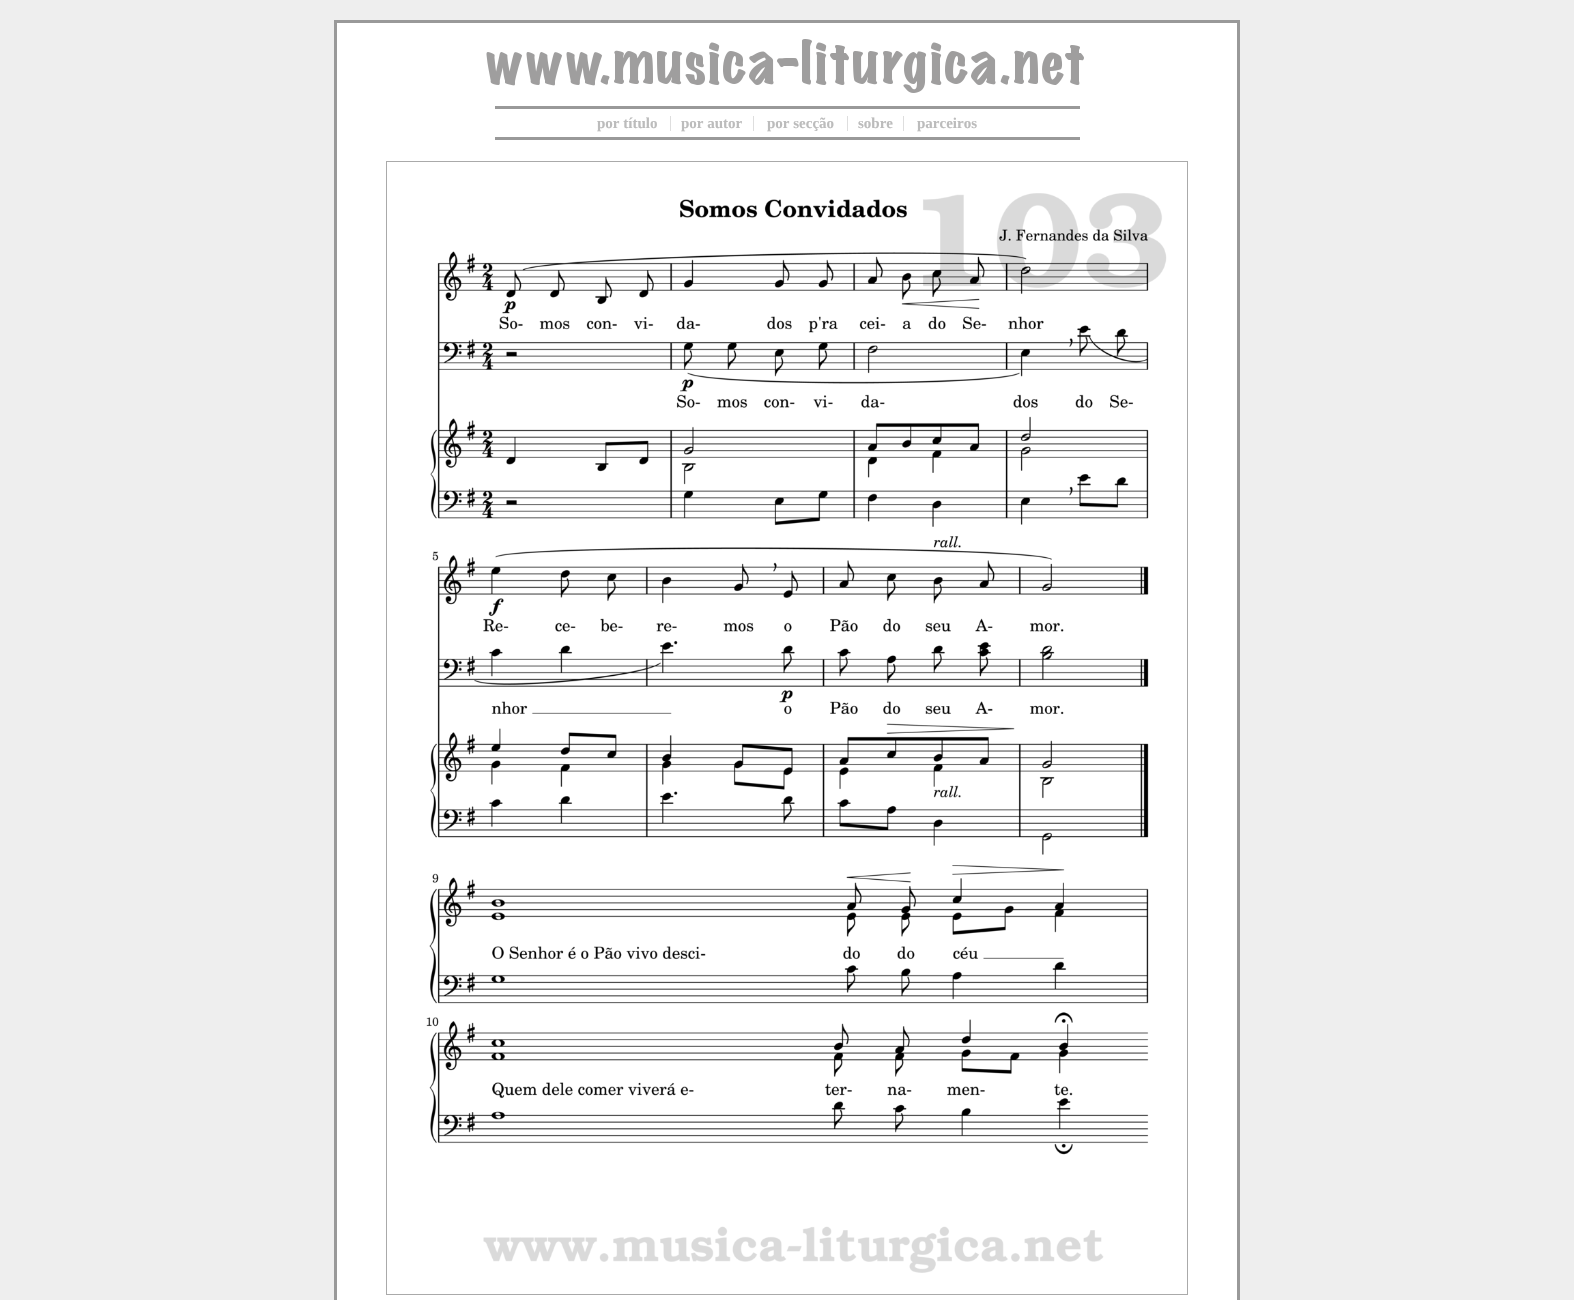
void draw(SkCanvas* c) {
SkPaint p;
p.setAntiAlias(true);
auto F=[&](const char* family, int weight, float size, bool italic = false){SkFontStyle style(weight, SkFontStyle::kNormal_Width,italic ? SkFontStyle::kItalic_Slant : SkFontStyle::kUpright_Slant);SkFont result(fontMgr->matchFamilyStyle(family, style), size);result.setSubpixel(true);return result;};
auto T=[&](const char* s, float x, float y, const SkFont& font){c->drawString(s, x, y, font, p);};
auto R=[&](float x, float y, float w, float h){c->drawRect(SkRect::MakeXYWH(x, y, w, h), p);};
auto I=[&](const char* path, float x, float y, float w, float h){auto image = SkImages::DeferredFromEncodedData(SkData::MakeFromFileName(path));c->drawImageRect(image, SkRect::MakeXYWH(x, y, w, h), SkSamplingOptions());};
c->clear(0xffeeeeee);
p.setStroke(true);
p.setStrokeWidth(3);
p.setColor(0xff999999);
c->drawRect(SkRect::MakeXYWH(335.5,21.5,903,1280),p);
p.setStroke(false);
p.setColor(0xffffffff);
R(337,23,900,1277);
I("1.png",486,39,598,54);
p.setColor(0xff999999);
R(495,106,585,3);
R(495,137,585,3);
auto f1 = F("Liberation Serif",700,15);
p.setColor(0xffbcbcbc);
T("por título",597,128,f1);
T("por autor",681,128,f1);
p.setColor(0xffdedede);
R(753,116,1,15);
R(670,116,1,15);
p.setColor(0xffbcbcbc);
T("por secção",767,128,f1);
T("sobre",858,128,f1);
p.setColor(0xffdedede);
R(903,116,1,15);
R(847,116,1,15);
p.setColor(0xffbcbcbc);
T("parceiros",917,128,f1);
p.setStroke(true);
p.setStrokeWidth(1);
p.setColor(0xffaaaaaa);
c->drawRect(SkRect::MakeXYWH(386.5,161.5,801,1133),p);
I("2.png",426,193,741,1080);
}
